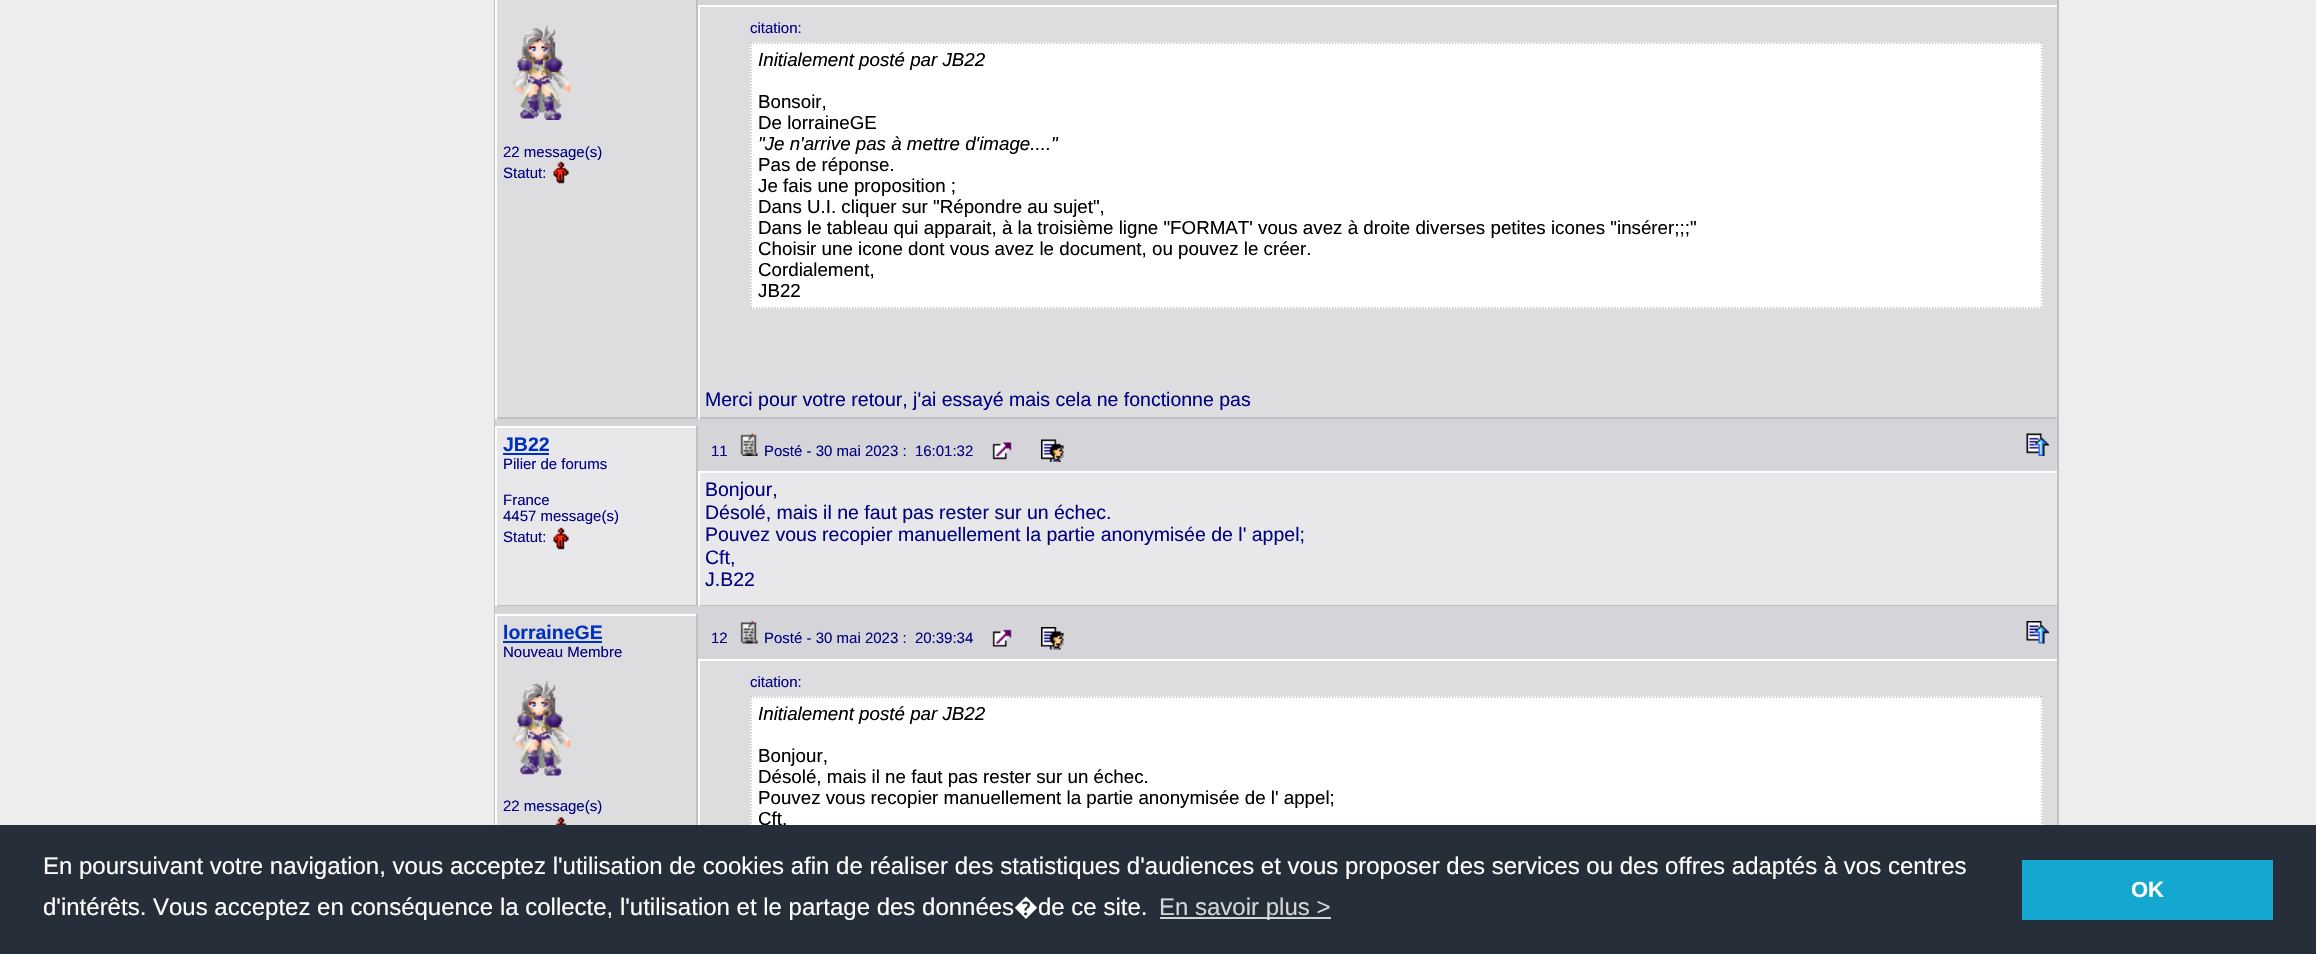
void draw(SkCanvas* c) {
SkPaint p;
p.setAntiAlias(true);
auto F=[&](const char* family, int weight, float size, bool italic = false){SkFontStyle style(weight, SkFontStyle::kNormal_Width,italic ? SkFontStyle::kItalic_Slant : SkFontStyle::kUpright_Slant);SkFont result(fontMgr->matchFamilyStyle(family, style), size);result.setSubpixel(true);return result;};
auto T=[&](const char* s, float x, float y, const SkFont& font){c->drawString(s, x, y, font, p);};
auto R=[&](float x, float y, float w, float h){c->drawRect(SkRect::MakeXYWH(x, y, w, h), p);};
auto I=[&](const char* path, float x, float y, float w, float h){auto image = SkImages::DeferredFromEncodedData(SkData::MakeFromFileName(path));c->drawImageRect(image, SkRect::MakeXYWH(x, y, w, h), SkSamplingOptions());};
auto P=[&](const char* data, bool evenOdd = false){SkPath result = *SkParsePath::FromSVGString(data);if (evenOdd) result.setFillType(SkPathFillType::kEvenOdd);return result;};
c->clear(0xffededef);
p.setColor(0xffc0c0c0);
R(494,0,1,825);
p.setColor(0xffd5d5d9);
R(698,0,1360,5);
p.setColor(0xffc0c0c0);
R(2057,0,2,5);
p.setColor(0xffdddde0);
R(497,0,199,417);
p.setColor(0xffc0c0c0);
R(696,0,2,419);
R(495,417,203,2);
p.setColor(0xffffffff);
R(495,0,2,419);
I("1.png",512,25,60,95);
auto f1 = F("Liberation Sans",400,15);
p.setColor(0xff000080);
T("22 message(s)",503,157,f1);
T("Statut:",503,178,f1);
I("2.png",553,161,16,23);
p.setColor(0xffdddde0);
R(700,7,1357,410);
p.setColor(0xffffffff);
R(698,5,1360,2);
p.setColor(0xffc0c0c0);
R(2057,5,2,414);
R(698,417,1360,2);
p.setColor(0xffffffff);
R(698,5,2,414);
p.setColor(0xff000080);
T("citation:",750,33,f1);
p.setColor(0xffffffff);
R(750,42,1293,267);
p.setStroke(true);
p.setStrokeWidth(1.5);
p.setColor(0xffc0c0c0);
p.setPathEffect(SkDashPathEffect::Make({{1.5f,1.5f}}, 0));
c->drawPath(P("M750 43h1293"),p);
p.setPathEffect(nullptr);
p.setPathEffect(SkDashPathEffect::Make({{1.5f,1.5f}}, 0));
c->drawPath(P("M2042 42v267"),p);
p.setPathEffect(nullptr);
p.setPathEffect(SkDashPathEffect::Make({{1.5f,1.5f}}, 0));
c->drawPath(P("M750 308h1293"),p);
p.setPathEffect(nullptr);
p.setPathEffect(SkDashPathEffect::Make({{1.5f,1.5f}}, 0));
c->drawPath(P("M751 42v267"),p);
p.setPathEffect(nullptr);
auto f2 = F("Liberation Sans",400,18.75,true);
p.setStroke(false);
p.setColor(0xff000000);
T("Initialement posté par JB22",758,66,f2);
auto f3 = F("Liberation Sans",400,18.75);
T("Bonsoir,",758,108,f3);
T("De lorraineGE",758,129,f3);
T("\"Je n'arrive pas à mettre d'image....\"",758,150,f2);
T("Pas de réponse.",758,171,f3);
T("Je fais une proposition ;",758,192,f3);
T("Dans U.I. cliquer sur \"Répondre au sujet\",",758,213,f3);
T("Dans le tableau qui apparait, à la troisième ligne \"FORMAT' vous avez à droite diverses petites icones \"insérer;;;\"",758,234,f3);
T("Choisir une icone dont vous avez le document, ou pouvez le créer.",758,255,f3);
T("Cordialement,",758,276,f3);
T("JB22",758,297,f3);
auto f4 = F("Liberation Sans",400,19.5);
p.setColor(0xff000080);
T("Merci pour votre retour, j'ai essayé mais cela ne fonctionne pas",705,406,f4);
p.setColor(0xffd5d5d9);
R(495,419,1563,7);
p.setColor(0xffc0c0c0);
R(2057,419,2,52);
p.setColor(0xffe8e8eb);
R(497,428,199,177);
p.setColor(0xffffffff);
R(495,426,203,2);
p.setColor(0xffc0c0c0);
R(696,426,2,180);
R(495,605,203,1);
p.setColor(0xffffffff);
R(495,426,2,180);
auto f5 = F("Liberation Sans",700,19.5);
p.setColor(0xff0030c0);
T("JB22",503,451,f5);
R(503,453,46,2);
p.setColor(0xff000080);
T("Pilier de forums",503,469,f1);
T("France",503,505,f1);
T("4457 message(s)",503,521,f1);
T("Statut:",503,542,f1);
I("3.png",553,527,16,23);
p.setColor(0xffd5d5d9);
R(698,426,1359,45);
p.setColor(0xff000080);
T("11",711,456,f1);
I("4.png",740,433,18,23);
T("Posté - 30 mai 2023 :  16:01:32",764,456,f1);
I("5.png",992,442,20,18);
I("6.png",1041,439,23,23);
I("7.png",2026,433,23,23);
p.setColor(0xffe8e8eb);
R(700,473,1357,132);
p.setColor(0xffffffff);
R(698,471,1360,2);
p.setColor(0xffc0c0c0);
R(2057,471,2,135);
R(698,605,1360,1);
p.setColor(0xffffffff);
R(698,471,2,135);
p.setColor(0xff000080);
T("Bonjour,",705,496,f4);
T("Désolé, mais il ne faut pas rester sur un échec.",705,519,f4);
T("Pouvez vous recopier manuellement la partie anonymisée de l' appel;",705,541,f4);
T("Cft,",705,564,f4);
T("J.B22",705,586,f4);
p.setColor(0xffd5d5d9);
R(495,606,1563,8);
p.setColor(0xffc0c0c0);
R(2057,606,2,53);
p.setColor(0xffdddde0);
R(497,616,199,209);
p.setColor(0xffffffff);
R(495,614,203,2);
p.setColor(0xffc0c0c0);
R(696,614,2,211);
p.setColor(0xffffffff);
R(495,614,2,211);
p.setColor(0xff0030c0);
T("lorraineGE",503,639,f5);
R(503,641,99,2);
p.setColor(0xff000080);
T("Nouveau Membre",503,657,f1);
I("8.png",512,680,60,96);
T("22 message(s)",503,811,f1);
I("9.png",555,817,12,8);
p.setColor(0xffd5d5d9);
R(698,614,1359,45);
p.setColor(0xff000080);
T("12",711,643,f1);
I("10.png",740,621,18,23);
T("Posté - 30 mai 2023 :  20:39:34",764,643,f1);
I("11.png",992,629,20,18);
I("12.png",1041,627,23,23);
I("13.png",2026,621,23,23);
p.setColor(0xffdddde0);
R(700,661,1357,164);
p.setColor(0xffffffff);
R(698,659,1360,2);
p.setColor(0xffc0c0c0);
R(2057,659,2,166);
p.setColor(0xffffffff);
R(698,659,2,166);
p.setColor(0xff000080);
T("citation:",750,687,f1);
p.setColor(0xffffffff);
R(750,696,1293,129);
p.setStroke(true);
p.setColor(0xffc0c0c0);
p.setPathEffect(SkDashPathEffect::Make({{1.5f,1.5f}}, 0));
c->drawPath(P("M750 697h1293"),p);
p.setPathEffect(nullptr);
p.setPathEffect(SkDashPathEffect::Make({{1.5f,1.5f}}, 0));
c->drawPath(P("M2042 696v183"),p);
p.setPathEffect(nullptr);
p.setPathEffect(SkDashPathEffect::Make({{1.5f,1.5f}}, 0));
c->drawPath(P("M751 696v183"),p);
p.setPathEffect(nullptr);
p.setStroke(false);
p.setColor(0xff000000);
T("Initialement posté par JB22",758,720,f2);
T("Bonjour,",758,762,f3);
T("Désolé, mais il ne faut pas rester sur un échec.",758,783,f3);
T("Pouvez vous recopier manuellement la partie anonymisée de l' appel;",758,804,f3);
T("Cft,",758,825,f3);
p.setColor(0xff252e39);
R(0,825,2316,129);
auto f6 = F("Liberation Sans",400,24);
p.setColor(0xffffffff);
T("En poursuivant votre navigation, vous acceptez l'utilisation de cookies afin de réaliser des statistiques d'audiences et vous proposer des services ou des offres adaptés à vos centres",43,874,f6);
T("d'intérêts. Vous acceptez en conséquence la collecte, l'utilisation et le partage des données",43,915,f6);
auto f7 = F("Noto Sans",400,24);
T("�",1014,915,f7);
T("de ce site.",1038,915,f6);
p.setColor(0xffd3d5d7);
R(1160,917,171,2);
T("En savoir plus >",1159,915,f6);
p.setColor(0xff14a7d0);
R(2022,860,251,60);
auto f8 = F("Liberation Sans",700,22);
p.setColor(0xffffffff);
T("OK",2131,897,f8);
}
